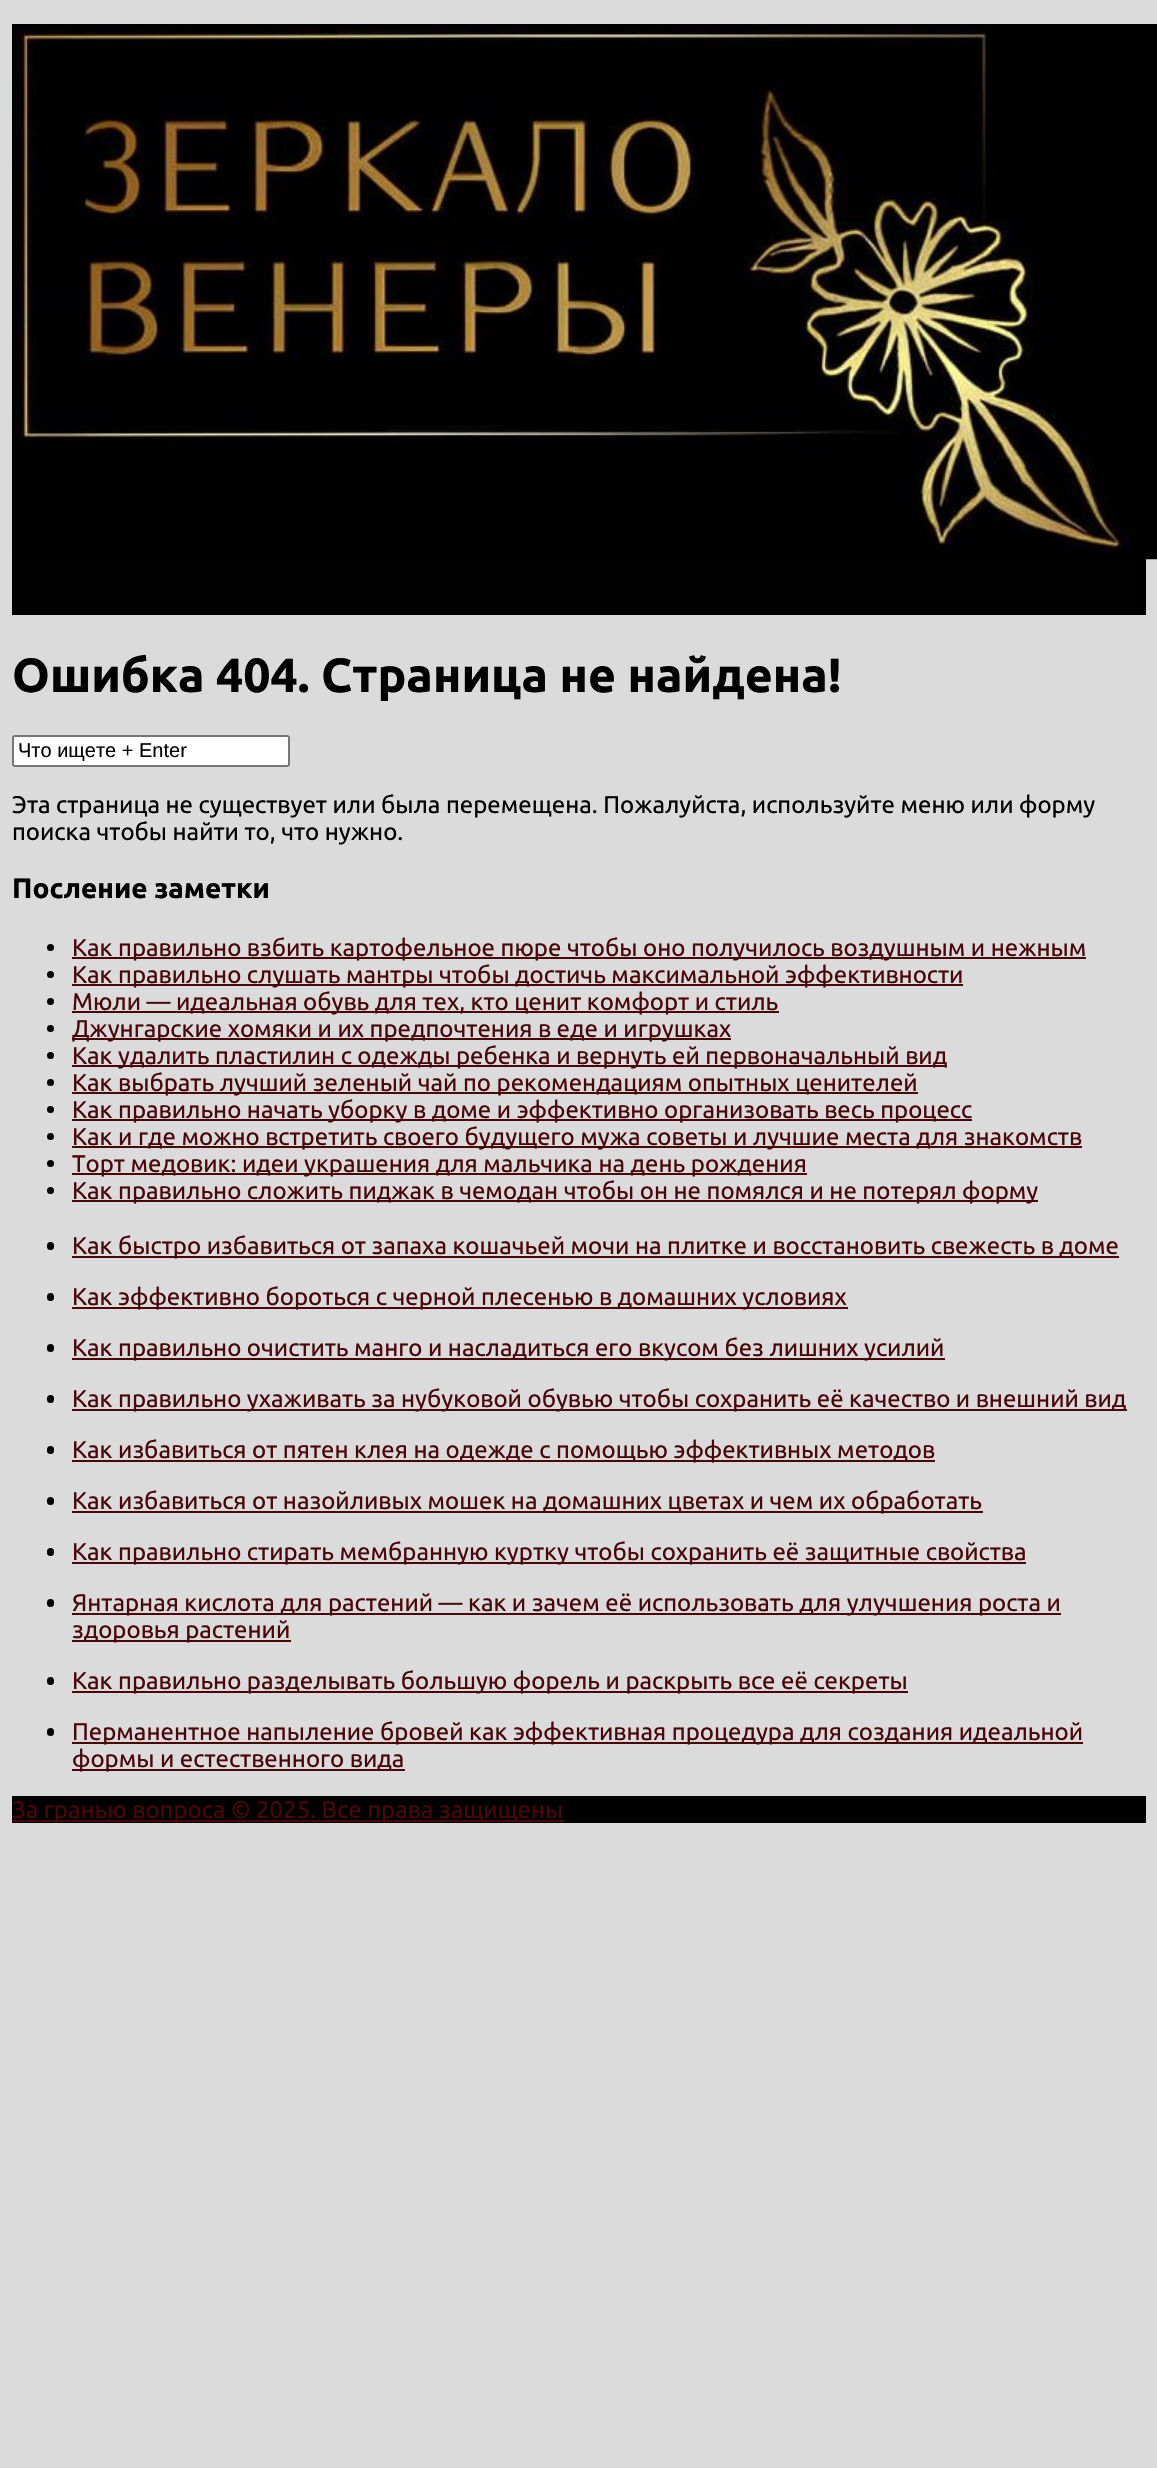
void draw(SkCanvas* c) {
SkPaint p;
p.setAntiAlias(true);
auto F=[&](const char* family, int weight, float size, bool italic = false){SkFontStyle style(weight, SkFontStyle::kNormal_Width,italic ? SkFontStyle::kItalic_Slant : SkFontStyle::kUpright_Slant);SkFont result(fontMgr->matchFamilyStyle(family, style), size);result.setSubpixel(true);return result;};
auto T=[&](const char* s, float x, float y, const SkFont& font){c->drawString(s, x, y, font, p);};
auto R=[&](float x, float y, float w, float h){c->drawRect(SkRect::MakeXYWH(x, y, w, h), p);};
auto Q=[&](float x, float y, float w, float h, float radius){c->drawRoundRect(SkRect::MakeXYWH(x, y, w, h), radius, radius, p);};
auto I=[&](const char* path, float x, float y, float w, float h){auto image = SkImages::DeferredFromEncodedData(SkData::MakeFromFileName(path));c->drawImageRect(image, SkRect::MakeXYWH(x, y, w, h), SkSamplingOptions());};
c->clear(0xffdbdbdb);
p.setColor(0xff000202);
R(12,24,1134,591);
I("1.png",12,24,1145,536);
auto f1 = F("Ubuntu",700,48);
p.setColor(0xff000000);
T("Ошибка 404. Страница не найдена!",12,692,f1);
p.setColor(0xffffffff);
c->drawRoundRect(SkRect::MakeXYWH(13,736,276,30),2,2,p);
p.setStroke(true);
p.setStrokeWidth(2);
p.setColor(0xff767676);
c->drawRoundRect(SkRect::MakeXYWH(13,736,276,30),2,2,p);
auto f2 = F("Liberation Sans",400,20);
p.setStroke(false);
p.setColor(0xff000000);
T("Что ищете + Enter",18,757,f2);
auto f3 = F("Ubuntu",400,24);
T("Эта страница не существует или была перемещена. Пожалуйста, используйте меню или форму",12,813,f3);
T("поиска чтобы найти то, что нужно.",12,840,f3);
auto f4 = F("Ubuntu",700,28);
T("Посление заметки",12,898,f4);
c->drawCircle(50.5,947.5,3.5,p);
p.setColor(0xff490709);
R(72,957,1014,2);
T("Как правильно взбить картофельное пюре чтобы оно получилось воздушным и нежным",72,956,f3);
p.setColor(0xff000000);
c->drawCircle(50.5,974.5,3.5,p);
p.setColor(0xff490709);
R(72,984,891,2);
T("Как правильно слушать мантры чтобы достичь максимальной эффективности",72,983,f3);
p.setColor(0xff000000);
c->drawCircle(50.5,1001.5,3.5,p);
p.setColor(0xff490709);
R(72,1011,707,2);
T("Мюли — идеальная обувь для тех, кто ценит комфорт и стиль",72,1010,f3);
p.setColor(0xff000000);
c->drawCircle(50.5,1028.5,3.5,p);
p.setColor(0xff490709);
R(72,1038,659,2);
T("Джунгарские хомяки и их предпочтения в еде и игрушках",72,1037,f3);
p.setColor(0xff000000);
c->drawCircle(50.5,1055.5,3.5,p);
p.setColor(0xff490709);
R(72,1065,875,2);
T("Как удалить пластилин с одежды ребенка и вернуть ей первоначальный вид",72,1064,f3);
p.setColor(0xff000000);
c->drawCircle(50.5,1082.5,3.5,p);
p.setColor(0xff490709);
R(72,1092,846,2);
T("Как выбрать лучший зеленый чай по рекомендациям опытных ценителей",72,1091,f3);
p.setColor(0xff000000);
c->drawCircle(50.5,1109.5,3.5,p);
p.setColor(0xff490709);
R(72,1119,900,2);
T("Как правильно начать уборку в доме и эффективно организовать весь процесс",72,1118,f3);
p.setColor(0xff000000);
c->drawCircle(50.5,1136.5,3.5,p);
p.setColor(0xff490709);
R(72,1146,1010,2);
T("Как и где можно встретить своего будущего мужа советы и лучшие места для знакомств",72,1145,f3);
p.setColor(0xff000000);
c->drawCircle(50.5,1163.5,3.5,p);
p.setColor(0xff490709);
R(72,1173,735,2);
T("Торт медовик: идеи украшения для мальчика на день рождения",72,1172,f3);
p.setColor(0xff000000);
c->drawCircle(50.5,1190.5,3.5,p);
p.setColor(0xff490709);
R(72,1200,966,2);
T("Как правильно сложить пиджак в чемодан чтобы он не помялся и не потерял форму",72,1199,f3);
p.setColor(0xff000000);
Q(47,1242,7,8,3.5);
p.setColor(0xff490709);
R(72,1256,1047,2);
T("Как быстро избавиться от запаха кошачьей мочи на плитке и восстановить свежесть в доме",72,1254,f3);
p.setColor(0xff000000);
Q(47,1293,7,8,3.5);
p.setColor(0xff490709);
R(72,1307,776,2);
T("Как эффективно бороться с черной плесенью в домашних условиях",72,1305,f3);
p.setColor(0xff000000);
Q(47,1344,7,8,3.5);
p.setColor(0xff490709);
R(72,1358,873,2);
T("Как правильно очистить манго и насладиться его вкусом без лишних усилий",72,1356,f3);
p.setColor(0xff000000);
Q(47,1395,7,8,3.5);
p.setColor(0xff490709);
R(72,1409,1055,2);
T("Как правильно ухаживать за нубуковой обувью чтобы сохранить её качество и внешний вид",72,1407,f3);
p.setColor(0xff000000);
Q(47,1446,7,8,3.5);
p.setColor(0xff490709);
R(72,1460,863,2);
T("Как избавиться от пятен клея на одежде с помощью эффективных методов",72,1458,f3);
p.setColor(0xff000000);
Q(47,1497,7,8,3.5);
p.setColor(0xff490709);
R(72,1511,911,2);
T("Как избавиться от назойливых мошек на домашних цветах и чем их обработать",72,1509,f3);
p.setColor(0xff000000);
Q(47,1548,7,8,3.5);
p.setColor(0xff490709);
R(72,1562,954,2);
T("Как правильно стирать мембранную куртку чтобы сохранить её защитные свойства",72,1560,f3);
p.setColor(0xff000000);
Q(47,1599,7,8,3.5);
p.setColor(0xff490709);
R(72,1613,989,2);
T("Янтарная кислота для растений — как и зачем её использовать для улучшения роста и",72,1611,f3);
R(72,1640,219,2);
T("здоровья растений",72,1638,f3);
p.setColor(0xff000000);
Q(47,1677,7,8,3.5);
p.setColor(0xff490709);
R(72,1691,836,2);
T("Как правильно разделывать большую форель и раскрыть все её секреты",72,1689,f3);
p.setColor(0xff000000);
Q(47,1728,7,8,3.5);
p.setColor(0xff490709);
R(72,1742,1011,2);
T("Перманентное напыление бровей как эффективная процедура для создания идеальной",72,1740,f3);
R(72,1769,333,2);
T("формы и естественного вида",72,1767,f3);
p.setColor(0xff000000);
R(12,1796,1134,27);
p.setColor(0xff490709);
R(12,1820,552,2);
T("За гранью вопроса © 2025. Все права защищены",12,1818,f3);
}
